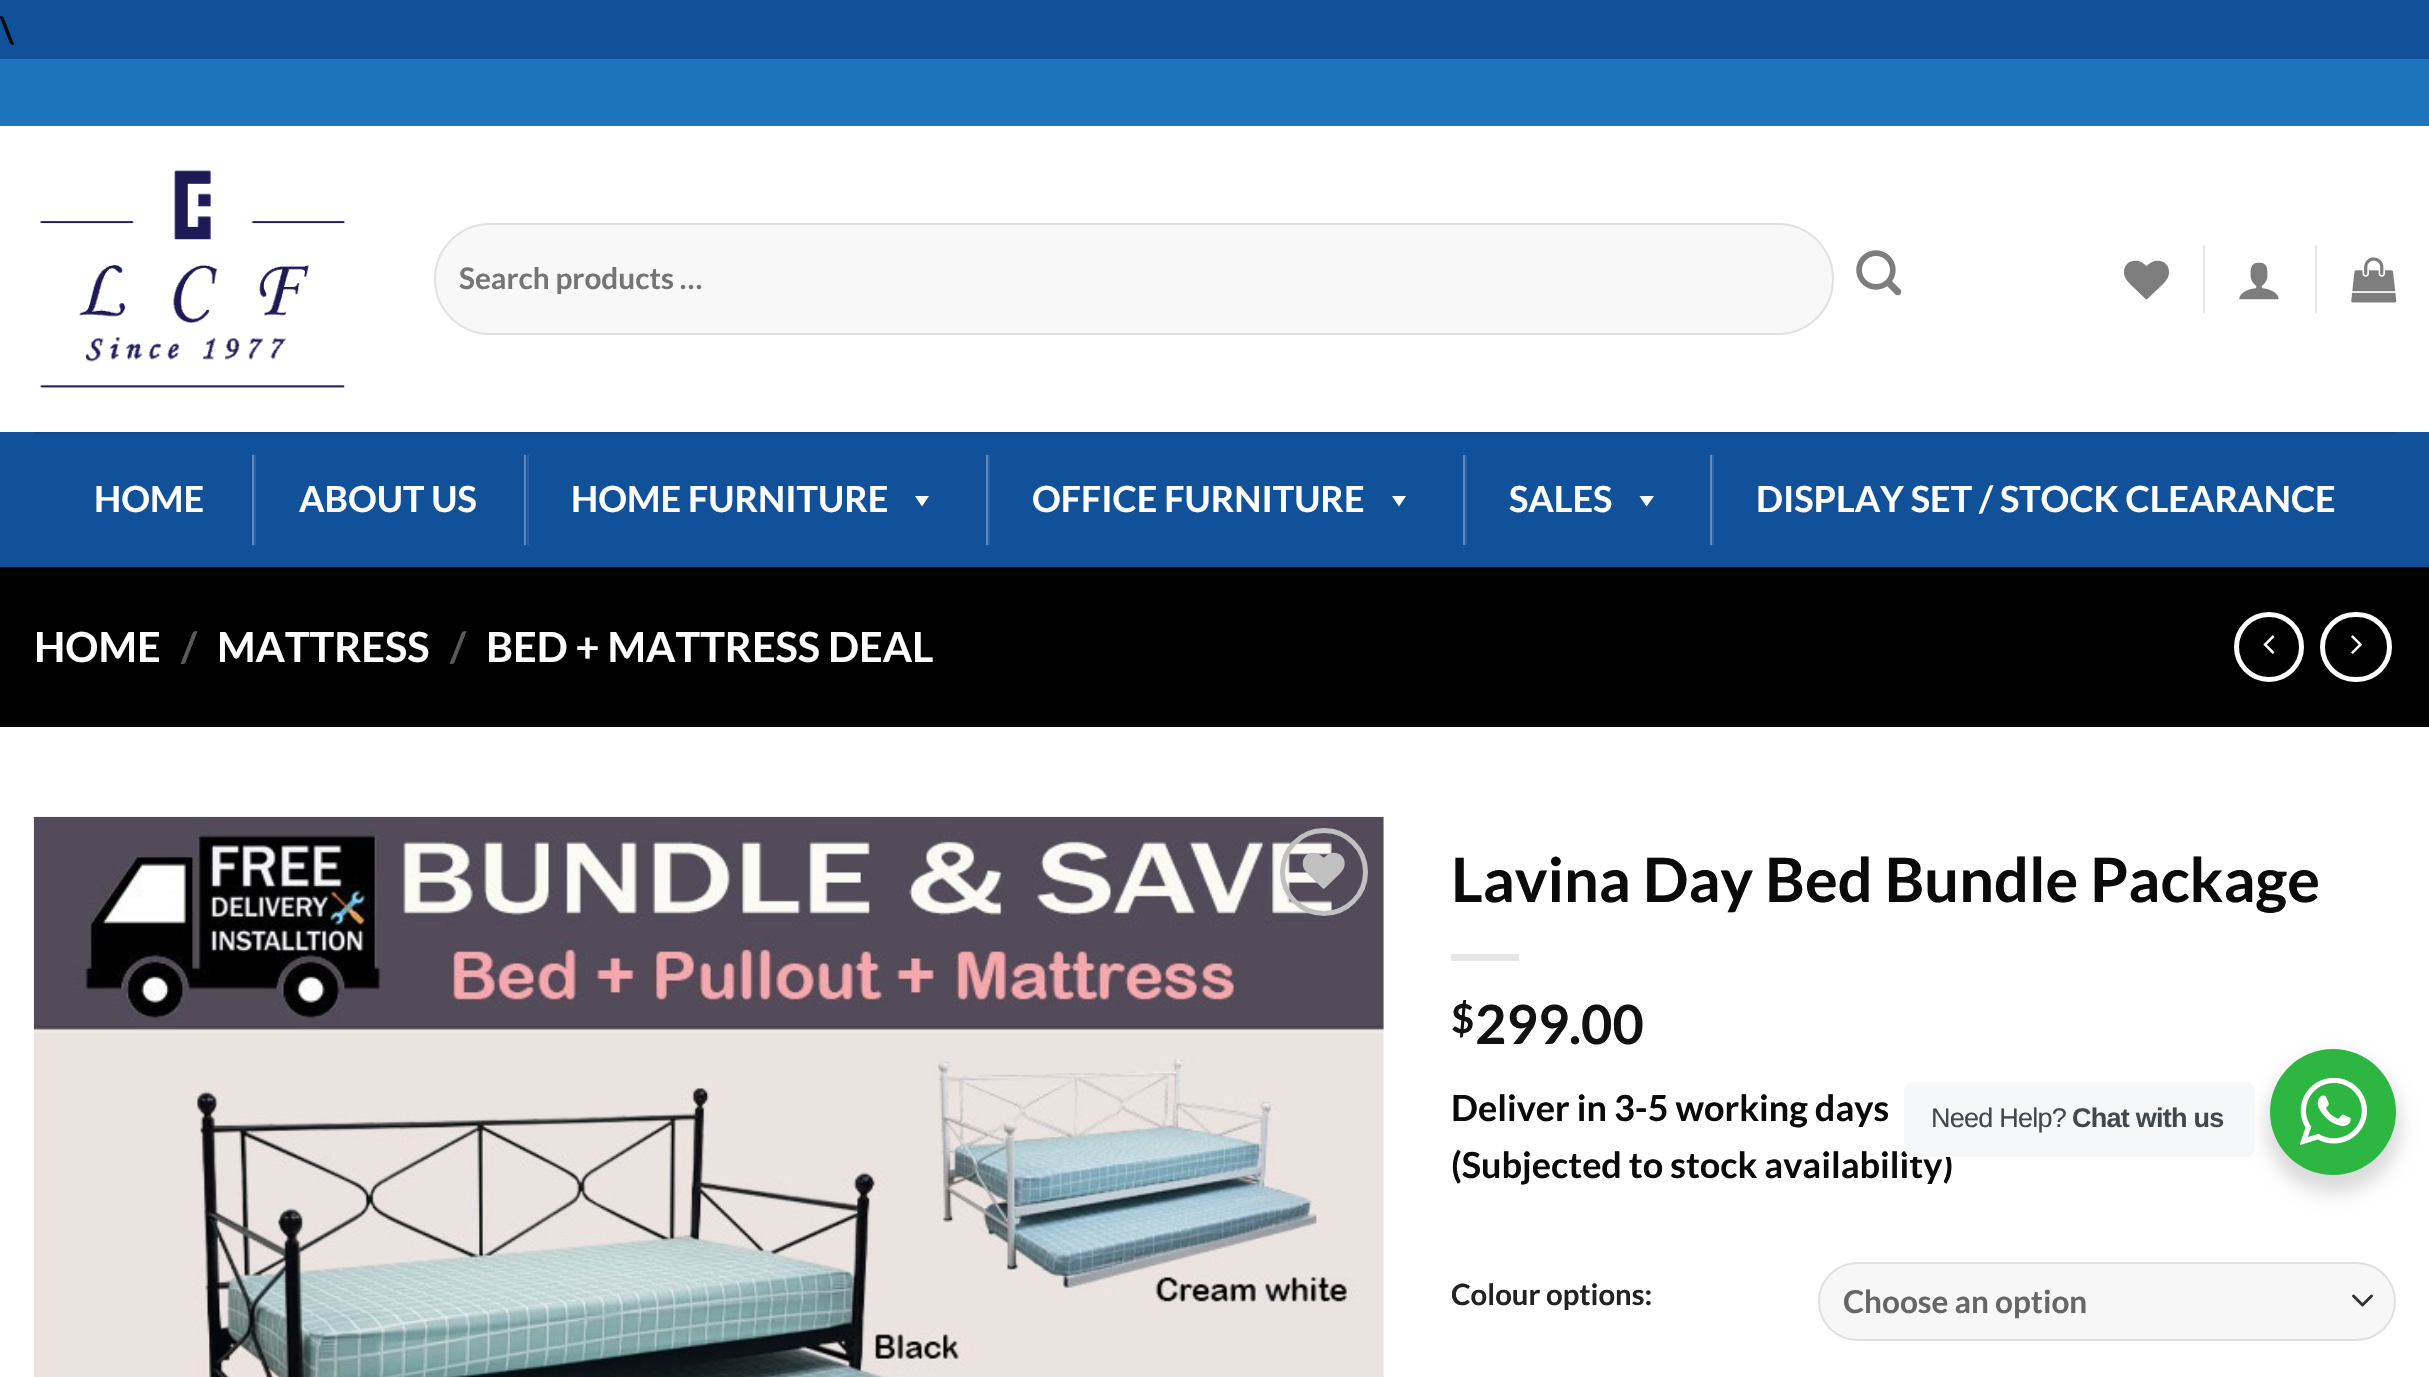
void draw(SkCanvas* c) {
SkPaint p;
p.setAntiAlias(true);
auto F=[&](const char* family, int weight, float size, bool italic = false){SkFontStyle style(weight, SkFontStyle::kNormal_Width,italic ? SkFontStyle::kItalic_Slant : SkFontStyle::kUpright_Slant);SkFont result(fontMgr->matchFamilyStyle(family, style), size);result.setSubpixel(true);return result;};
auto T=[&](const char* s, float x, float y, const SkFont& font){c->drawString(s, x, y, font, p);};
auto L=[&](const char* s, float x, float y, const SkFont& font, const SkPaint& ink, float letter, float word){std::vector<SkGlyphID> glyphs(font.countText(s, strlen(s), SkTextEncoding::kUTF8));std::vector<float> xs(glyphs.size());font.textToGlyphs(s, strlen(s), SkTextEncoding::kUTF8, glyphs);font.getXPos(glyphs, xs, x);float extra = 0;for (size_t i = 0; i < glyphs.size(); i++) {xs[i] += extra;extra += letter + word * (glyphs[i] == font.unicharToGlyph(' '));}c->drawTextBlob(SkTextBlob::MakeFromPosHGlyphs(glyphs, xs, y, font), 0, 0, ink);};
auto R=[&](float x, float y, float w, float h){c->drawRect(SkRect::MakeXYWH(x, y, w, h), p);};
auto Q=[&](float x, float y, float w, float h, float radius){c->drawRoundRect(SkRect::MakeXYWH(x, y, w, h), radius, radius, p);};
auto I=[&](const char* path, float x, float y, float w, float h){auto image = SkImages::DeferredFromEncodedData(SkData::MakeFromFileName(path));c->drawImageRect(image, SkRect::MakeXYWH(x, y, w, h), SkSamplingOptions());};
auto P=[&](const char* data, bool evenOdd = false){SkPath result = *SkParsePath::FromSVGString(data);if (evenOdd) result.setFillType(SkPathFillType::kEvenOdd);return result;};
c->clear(0xff11519a);
auto f1 = F("Lato",700,36);
p.setColor(0xff0a0a0a);
T("\\",0,43,f1);
p.setColor(0xffffffff);
R(0,126,2429,1251);
p.setColor(0xff1e73bd);
R(0,59,2429,67);
I("1.png",40,170,305,218);
p.setColor(0xfff8f8f8);
Q(434,223,1400,112,56);
p.setStroke(true);
p.setStrokeWidth(2);
p.setColor(0x17000000);
c->drawRoundRect(SkRect::MakeXYWH(435,224,1398,110),55,55,p);
auto f2 = F("Lato",700,29.75);
p.setStroke(false);
p.setColor(0xff757575);
T("Search products …",459,289,f2);
I("2.png",1856,250,46,46);
I("3.png",2124,260,45,40);
p.setColor(0xffe6e6e6);
R(2203,245,2,68);
I("4.png",2239,262,40,38);
R(2315,245,2,68);
I("5.png",2351,257,46,46);
p.setColor(0xff11519a);
R(0,432,2429,135);
p.setColor(0xff104a8c);
R(34,432,2362,2);
p.setColor(0xffffffff);
T("HOME",94,512,f1);
p.setColor(0xff2962a4);
R(254,455,2,90);
p.setColor(0xff608abb);
R(252,455,2,90);
p.setColor(0xffffffff);
T("ABOUT US",299,512,f1);
p.setColor(0xff2962a4);
R(527,455,2,90);
p.setColor(0xff608abb);
R(524,455,2,90);
p.setColor(0xffffffff);
T("HOME FURNITURE",571,512,f1);
c->drawPath(P("M929 496l-7 10.5l-7-10.5z"),p);
p.setColor(0xff2962a4);
R(988,455,2,90);
p.setColor(0xff608abb);
R(986,455,2,90);
p.setColor(0xffffffff);
T("OFFICE FURNITURE",1032,512,f1);
c->drawPath(P("M1406 496l-7 10.5l-7-10.5z"),p);
p.setColor(0xff2962a4);
R(1465,455,2,90);
p.setColor(0xff608abb);
R(1463,455,2,90);
p.setColor(0xffffffff);
T("SALES",1509,512,f1);
c->drawPath(P("M1654 496l-7.5 10.5l-7-10.5z"),p);
p.setColor(0xff2962a4);
R(1712,455,2,90);
p.setColor(0xff608abb);
R(1710,455,2,90);
p.setColor(0xffffffff);
T("DISPLAY SET / STOCK CLEARANCE",1756,512,f1);
p.setColor(0xff000000);
R(0,567,2429,160);
auto f3 = F("Lato",700,41.4);
p.setColor(0xffffffff);
T("HOME",34,662,f3);
p.setColor(0xff595959);
T("/",181,662,f3);
p.setColor(0xffffffff);
T("MATTRESS",217,662,f3);
p.setColor(0xff595959);
T("/",450,662,f3);
p.setColor(0xffffffff);
T("BED + MATTRESS DEAL",486,662,f3);
p.setStroke(true);
p.setStrokeWidth(5);
c->drawCircle(2269,647,32.5,p);
I("6.png",2263,635,12,19);
c->drawRoundRect(SkRect::MakeXYWH(2322.5,614.5,67,65),32.5,32.5,p);
I("7.png",2351,635,11,19);
I("8.png",33,816,1351,561);
p.setColor(0xffc0c0c0);
c->drawCircle(1324,872,41.5,p);
I("9.png",1302,852,43,37);
auto f4 = F("Lato",700,61.25);
p.setStroke(false);
p.setColor(0xff0a0a0a);
T("Lavina Day Bed Bundle Package",1451,902,f4);
p.setColor(0xffe6e6e6);
R(1451,954,68,7);
auto f5 = F("Lato",700,40);
p.setColor(0xff111111);
T("$",1451,1033,f5);
auto f6 = F("Lato",700,54);
T("299.00",1475,1044,f6);
p.setColor(0xff0a0a0a);
T("Deliver in 3-5 working days",1451,1121,f1);
T("(Subjected to stock availability)",1451,1178,f1);
auto f7 = F("Lato",700,29.25);
p.setColor(0xff222222);
T("Colour options:",1451,1305,f7);
p.setColor(0xfff7f7f7);
Q(1818,1262,578,79,39.5);
p.setStroke(true);
p.setStrokeWidth(3);
p.setStrokeCap(SkPaint::kRound_Cap);
p.setStrokeJoin(SkPaint::kRound_Join);
p.setColor(0xff333333);
c->drawPath(P("M2353.5 1296l9 9l9-9"),p);
p.setStrokeWidth(2);
p.setStrokeCap(SkPaint::kButt_Cap);
p.setStrokeJoin(SkPaint::kMiter_Join);
p.setColor(0x17000000);
c->drawRoundRect(SkRect::MakeXYWH(1819,1263,576,77),38.5,38.5,p);
auto f8 = F("Lato",700,31.5);
p.setStroke(false);
p.setColor(0xff666666);
T("Choose an option",1843,1313,f8);
p.setColor(0x24000000);
p.setMaskFilter(SkMaskFilter::MakeBlur(kNormal_SkBlurStyle, 9));
c->drawRoundRect(SkRect::MakeXYWH(2266,1058,135,135),67.5,67.5,p);
p.setMaskFilter(nullptr);
p.setColor(0xfff5f7f9);
Q(1904,1082,351,75,9);
auto f9 = F("Liberation Sans",400,27);
p.setColor(0xff43474e);
L("Need Help?",1931,1127,f9,p,-.75,0);
auto f10 = F("Liberation Sans",700,27);
L("Chat with us",2072,1127,f10,p,-.75,0);
p.setColor(0xff2db742);
c->drawCircle(2333,1112,63,p);
I("10.png",2300,1078,67,67);
}
